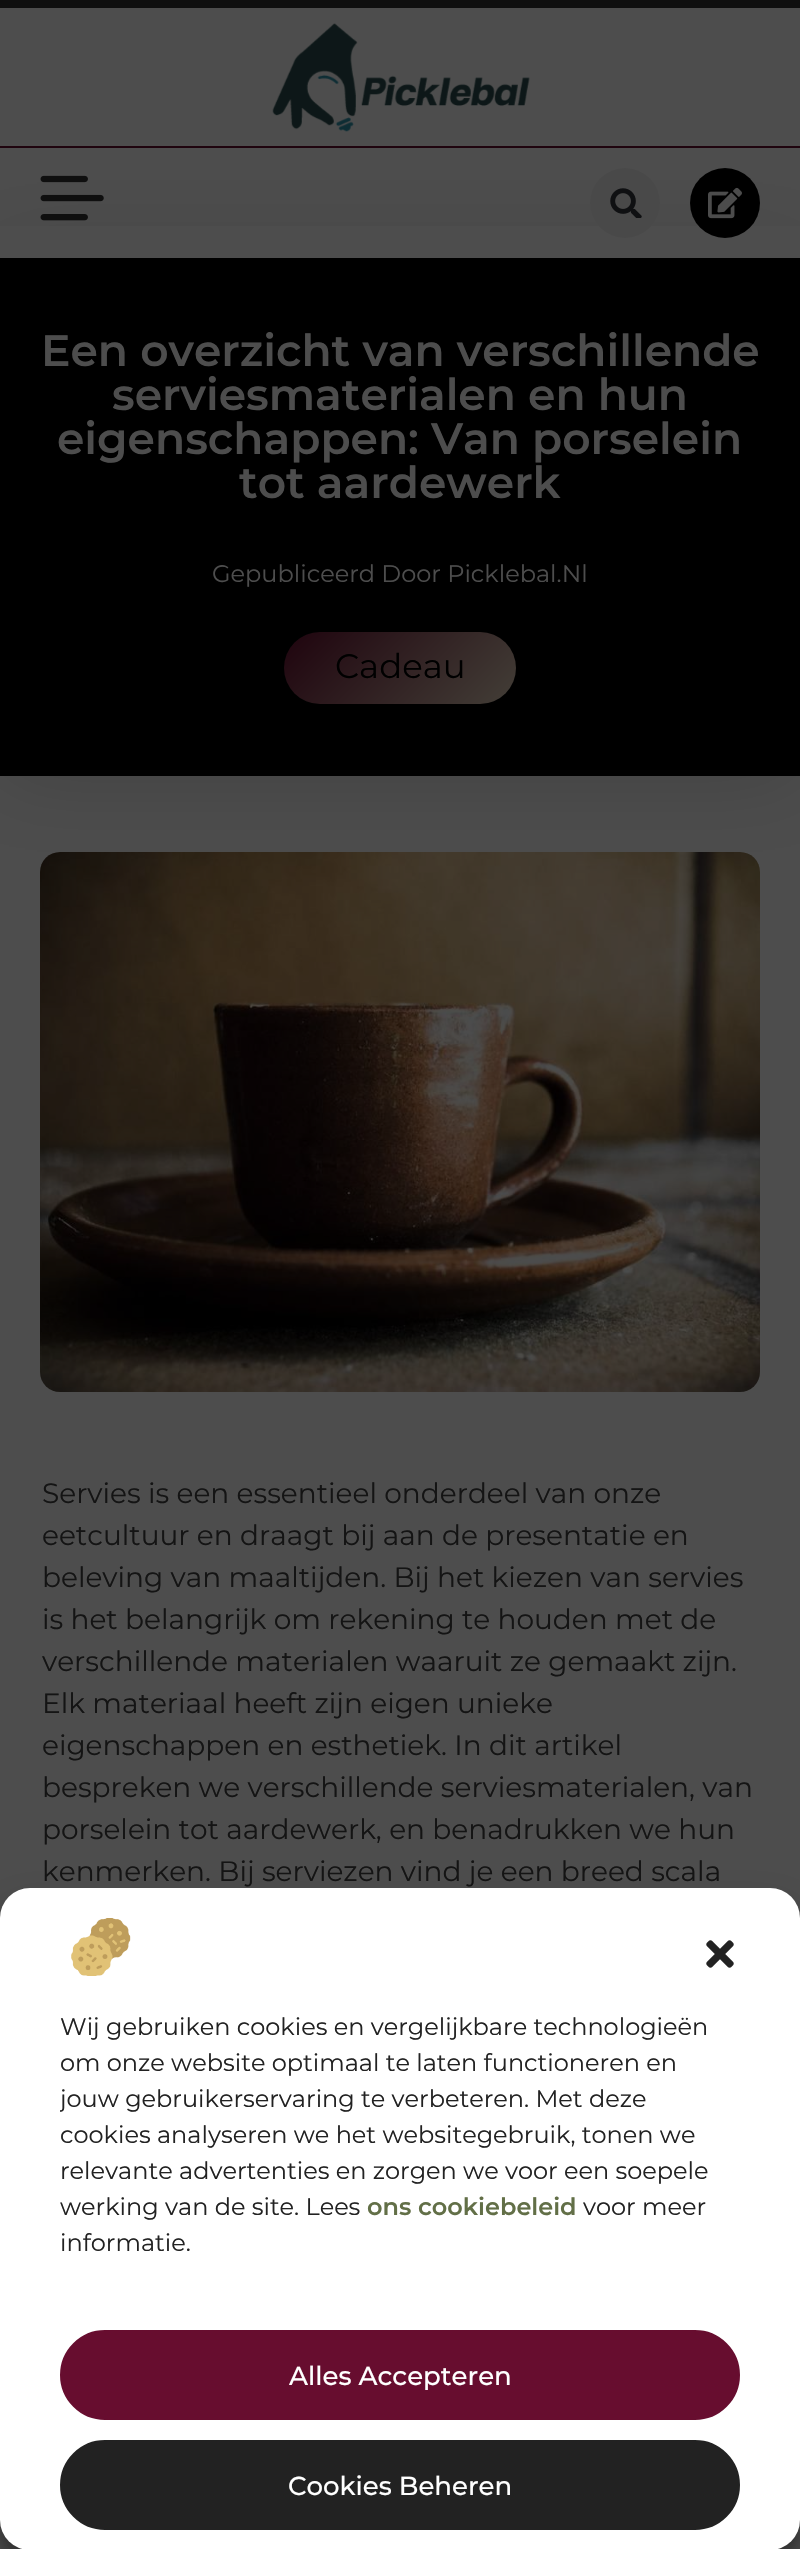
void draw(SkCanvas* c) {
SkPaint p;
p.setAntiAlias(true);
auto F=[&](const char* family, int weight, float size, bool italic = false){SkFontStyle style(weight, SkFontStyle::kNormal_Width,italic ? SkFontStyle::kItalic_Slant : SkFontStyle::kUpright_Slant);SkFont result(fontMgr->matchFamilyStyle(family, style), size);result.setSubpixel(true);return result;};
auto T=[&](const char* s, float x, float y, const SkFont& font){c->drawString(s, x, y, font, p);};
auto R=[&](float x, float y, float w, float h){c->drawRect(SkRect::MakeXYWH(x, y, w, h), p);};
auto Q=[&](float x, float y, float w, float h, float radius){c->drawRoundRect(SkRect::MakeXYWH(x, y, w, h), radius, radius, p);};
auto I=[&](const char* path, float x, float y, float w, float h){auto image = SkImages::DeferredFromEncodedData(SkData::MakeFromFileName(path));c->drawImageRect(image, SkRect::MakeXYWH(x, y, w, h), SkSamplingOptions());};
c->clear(0xff4d4d4d);
p.setColor(0xff0f0f0f);
R(0,0,800,8);
p.setColor(0x29000000);
p.setMaskFilter(SkMaskFilter::MakeBlur(kNormal_SkBlurStyle, 40));
c->drawRect(SkRect::MakeXYWH(0,258,800,518),p);
p.setMaskFilter(nullptr);
p.setColor(0xff1f040e);
R(0,146,800,2);
I("1.png",272,23,258,109);
p.setColor(0xff4d4d4d);
R(0,226,800,32);
I("2.png",40,175,64,46);
p.setColor(0xff494949);
c->drawCircle(625,203,35,p);
I("3.png",610,188,32,30);
p.setColor(0xff000000);
c->drawCircle(725,203,35,p);
I("4.png",708,187,34,32);
R(0,258,800,518);
auto f1 = F("Montserrat",600,44);
p.setColor(0xff4d4d4d);
T("Een overzicht van verschillende",41,366,f1);
T("serviesmaterialen en hun",112,410,f1);
T("eigenschappen: Van porselein",57,454,f1);
T("tot aardewerk",239,498,f1);
auto f2 = F("Montserrat",400,24);
T("Gepubliceerd Door Picklebal.Nl",212,582,f2);
{
const SkColor colors[] = {0xff1f040e,0xff433e37};
const float stops[] = {0,1};
const SkPoint ends[] = {{324,592}, {476,744}};
p.setShader(SkGradientShader::MakeLinear(ends, colors, stops, 2, SkTileMode::kClamp));
p.setAlpha(255);
}
Q(284,632,232,72,36);
auto f3 = F("Montserrat",400,34);
p.setShader(nullptr);
p.setColor(0xff000000);
T("Cadeau",335,678,f3);
I("5.png",40,852,720,540);
auto f4 = F("Montserrat",400,28);
p.setColor(0xff141414);
T("Servies is een essentieel onderdeel van onze",42,1503,f4);
T("eetcultuur en draagt bij aan de presentatie en",42,1545,f4);
T("beleving van maaltijden. Bij het kiezen van servies",42,1587,f4);
T("is het belangrijk om rekening te houden met de",42,1629,f4);
T("verschillende materialen waaruit ze gemaakt zijn.",42,1671,f4);
T("Elk materiaal heeft zijn eigen unieke",42,1713,f4);
T("eigenschappen en esthetiek. In dit artikel",42,1755,f4);
T("bespreken we verschillende serviesmaterialen, van",42,1797,f4);
T("porselein tot aardewerk, en benadrukken we hun",42,1839,f4);
T("kenmerken. Bij serviezen vind je een breed scala",42,1881,f4);
p.setColor(0x3b000000);
p.setMaskFilter(SkMaskFilter::MakeBlur(kNormal_SkBlurStyle, 6));
c->drawRoundRect(SkRect::MakeXYWH(0,1900,800,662),30,30,p);
p.setMaskFilter(nullptr);
p.setColor(0x30000000);
p.setMaskFilter(SkMaskFilter::MakeBlur(kNormal_SkBlurStyle, 20));
c->drawRoundRect(SkRect::MakeXYWH(0,1908,800,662),30,30,p);
p.setMaskFilter(nullptr);
p.setColor(0xffffffff);
Q(0,1888,800,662,30);
I("6.png",71,1918,60,58);
I("7.png",706,1940,28,28);
p.setColor(0xff222222);
T("Wij gebruiken cookies en vergelijkbare technologieën",60,2035,f2);
T("om onze website optimaal te laten functioneren en",60,2071,f2);
c->save();
c->clipRect(SkRect::MakeXYWH(60,2010,680,280));
T("jouw gebruikerservaring te verbeteren. Met deze",60,2107,f2);
c->restore();
T("cookies analyseren we het websitegebruik, tonen we",60,2143,f2);
T("relevante advertenties en zorgen we voor een soepele",60,2179,f2);
T("werking van de site. Lees",60,2215,f2);
auto f5 = F("Montserrat",600,24);
p.setColor(0xff626f47);
T("ons cookiebeleid",367,2215,f5);
p.setColor(0xff222222);
T("voor meer",583,2215,f2);
T("informatie.",60,2251,f2);
p.setColor(0xff670d2f);
c->drawRoundRect(SkRect::MakeXYWH(61,2331,678,88),44,44,p);
p.setStroke(true);
p.setStrokeWidth(2);
c->drawRoundRect(SkRect::MakeXYWH(61,2331,678,88),44,44,p);
auto f6 = F("Montserrat",500,26);
p.setStroke(false);
p.setColor(0xffffffff);
T("Alles Accepteren",289,2385,f6);
p.setColor(0xff222222);
c->drawRoundRect(SkRect::MakeXYWH(61,2441,678,88),44,44,p);
p.setStroke(true);
c->drawRoundRect(SkRect::MakeXYWH(61,2441,678,88),44,44,p);
p.setStroke(false);
p.setColor(0xffffffff);
T("Cookies Beheren",288,2495,f6);
}
